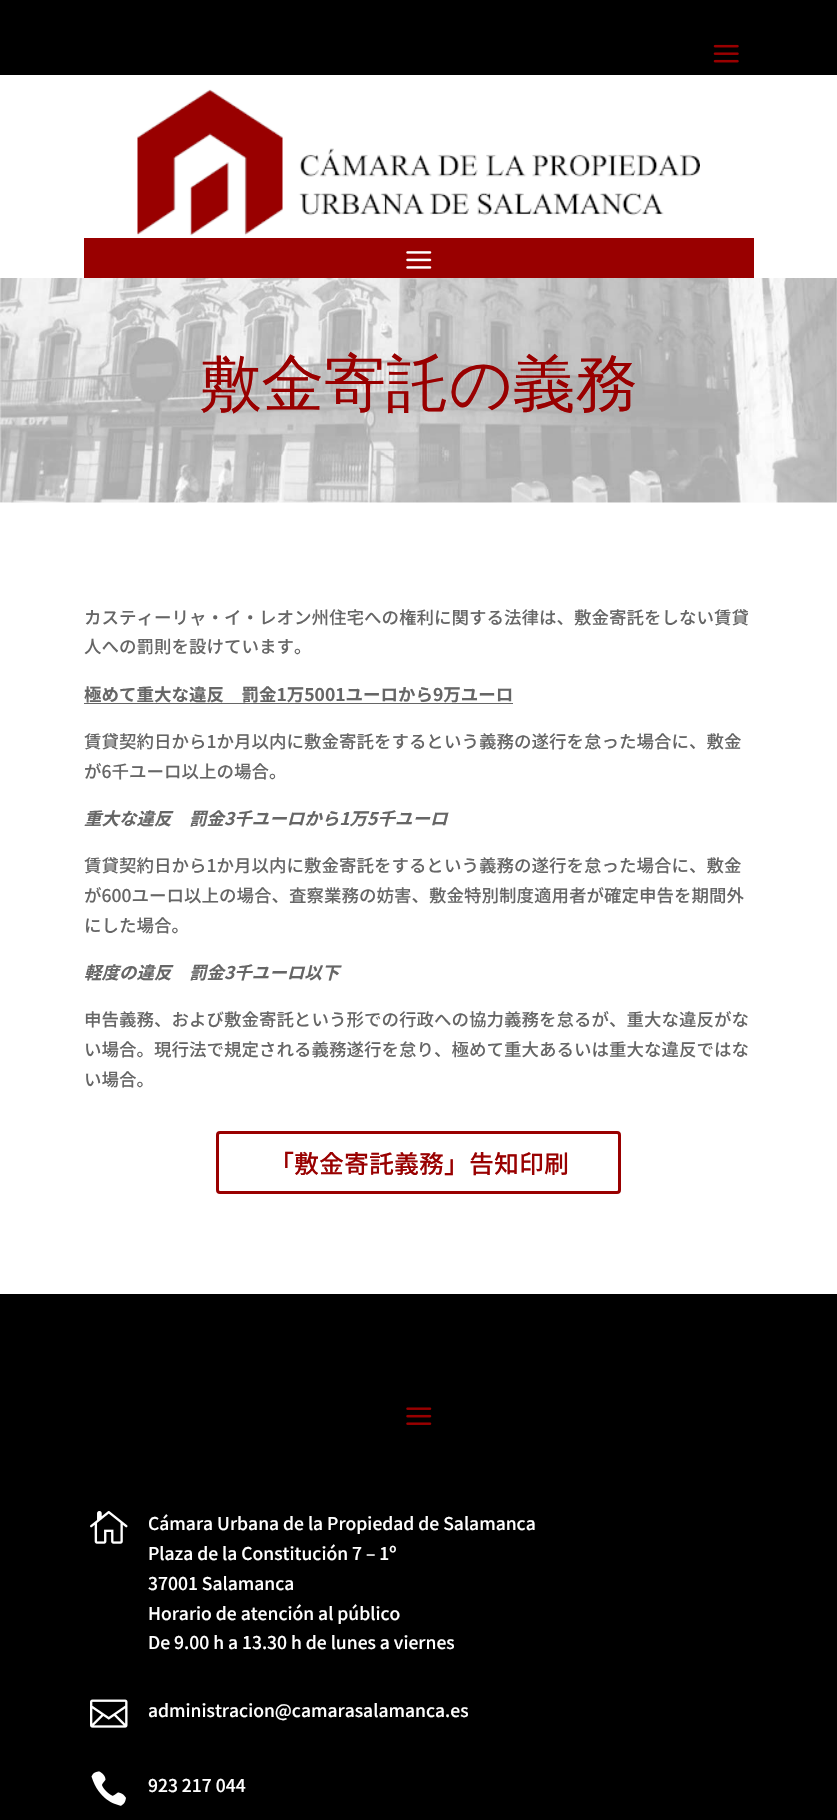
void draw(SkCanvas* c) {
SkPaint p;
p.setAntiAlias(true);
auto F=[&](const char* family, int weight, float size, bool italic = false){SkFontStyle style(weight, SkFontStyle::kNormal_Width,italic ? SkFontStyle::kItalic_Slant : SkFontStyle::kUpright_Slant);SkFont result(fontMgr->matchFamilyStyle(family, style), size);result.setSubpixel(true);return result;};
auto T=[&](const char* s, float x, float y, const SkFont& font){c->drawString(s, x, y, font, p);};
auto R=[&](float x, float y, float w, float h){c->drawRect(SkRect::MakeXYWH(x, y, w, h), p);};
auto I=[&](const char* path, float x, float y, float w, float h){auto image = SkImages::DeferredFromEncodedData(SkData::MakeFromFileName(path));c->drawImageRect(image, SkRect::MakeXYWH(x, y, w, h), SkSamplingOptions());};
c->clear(0xffffffff);
p.setColor(0xff000000);
R(0,0,837,75);
I("1.png",713,44,26,19);
I("2.png",137,89,563,147);
p.setColor(0xff990000);
R(84,238,670,40);
I("3.png",406,251,26,18);
I("4.png",0,278,837,225);
auto f1 = F("WenQuanYi Zen Hei",500,62.5);
T("敷金寄託の義務",199,405,f1);
auto f2 = F("Noto Sans JP",500,17.5);
p.setColor(0xff666666);
T("カスティーリャ・イ・レオン州住宅への権利に関する法律は、敷金寄託をしない賃貸",84,624,f2);
T("人への罰則を設けています。",84,653,f2);
auto f3 = F("Noto Sans JP",700,17.5);
T("極めて重大な違反　罰金1万5001ユーロから9万ユーロ",84,701,f3);
R(84,703,429,1);
T("賃貸契約日から1か月以内に敷金寄託をするという義務の遂行を怠った場合に、敷金",84,748,f2);
T("が6千ユーロ以上の場合。",84,778,f2);
auto f4 = F("Noto Sans JP",700,17.5,true);
T("重大な違反　罰金3千ユーロから1万5千ユーロ",84,825,f4);
T("賃貸契約日から1か月以内に敷金寄託をするという義務の遂行を怠った場合に、敷金",84,872,f2);
T("が600ユーロ以上の場合、査察業務の妨害、敷金特別制度適用者が確定申告を期間外",84,902,f2);
T("にした場合。",84,932,f2);
T("軽度の違反　罰金3千ユーロ以下",84,979,f4);
T("申告義務、および敷金寄託という形での行政への協力義務を怠るが、重大な違反がな",84,1026,f2);
T("い場合。現行法で規定される義務遂行を怠り、極めて重大あるいは重大な違反ではな",84,1056,f2);
T("い場合。",84,1086,f2);
p.setStroke(true);
p.setStrokeWidth(3);
p.setColor(0xff990000);
c->drawRoundRect(SkRect::MakeXYWH(217.5,1132.5,402,60),2.5,2.5,p);
auto f5 = F("Noto Sans JP",500,25);
p.setStroke(false);
T("「敷金寄託義務」告知印刷",269,1173,f5);
p.setColor(0xff000000);
R(0,1294,837,526);
I("5.png",406,1407,26,18);
I("6.png",90,1511,38,33);
p.setColor(0xffffffff);
T("Cámara Urbana de la Propiedad de Salamanca",148,1530,f2);
T("Plaza de la Constitución 7 – 1º",148,1560,f2);
T("37001 Salamanca",148,1590,f2);
T("Horario de atención al público",148,1620,f2);
T("De 9.00 h a 13.30 h de lunes a viernes",148,1649,f2);
I("7.png",90,1699,38,29);
T("administracion@camarasalamanca.es",148,1717,f2);
I("8.png",91,1771,35,35);
T("923 217 044",148,1792,f2);
}
